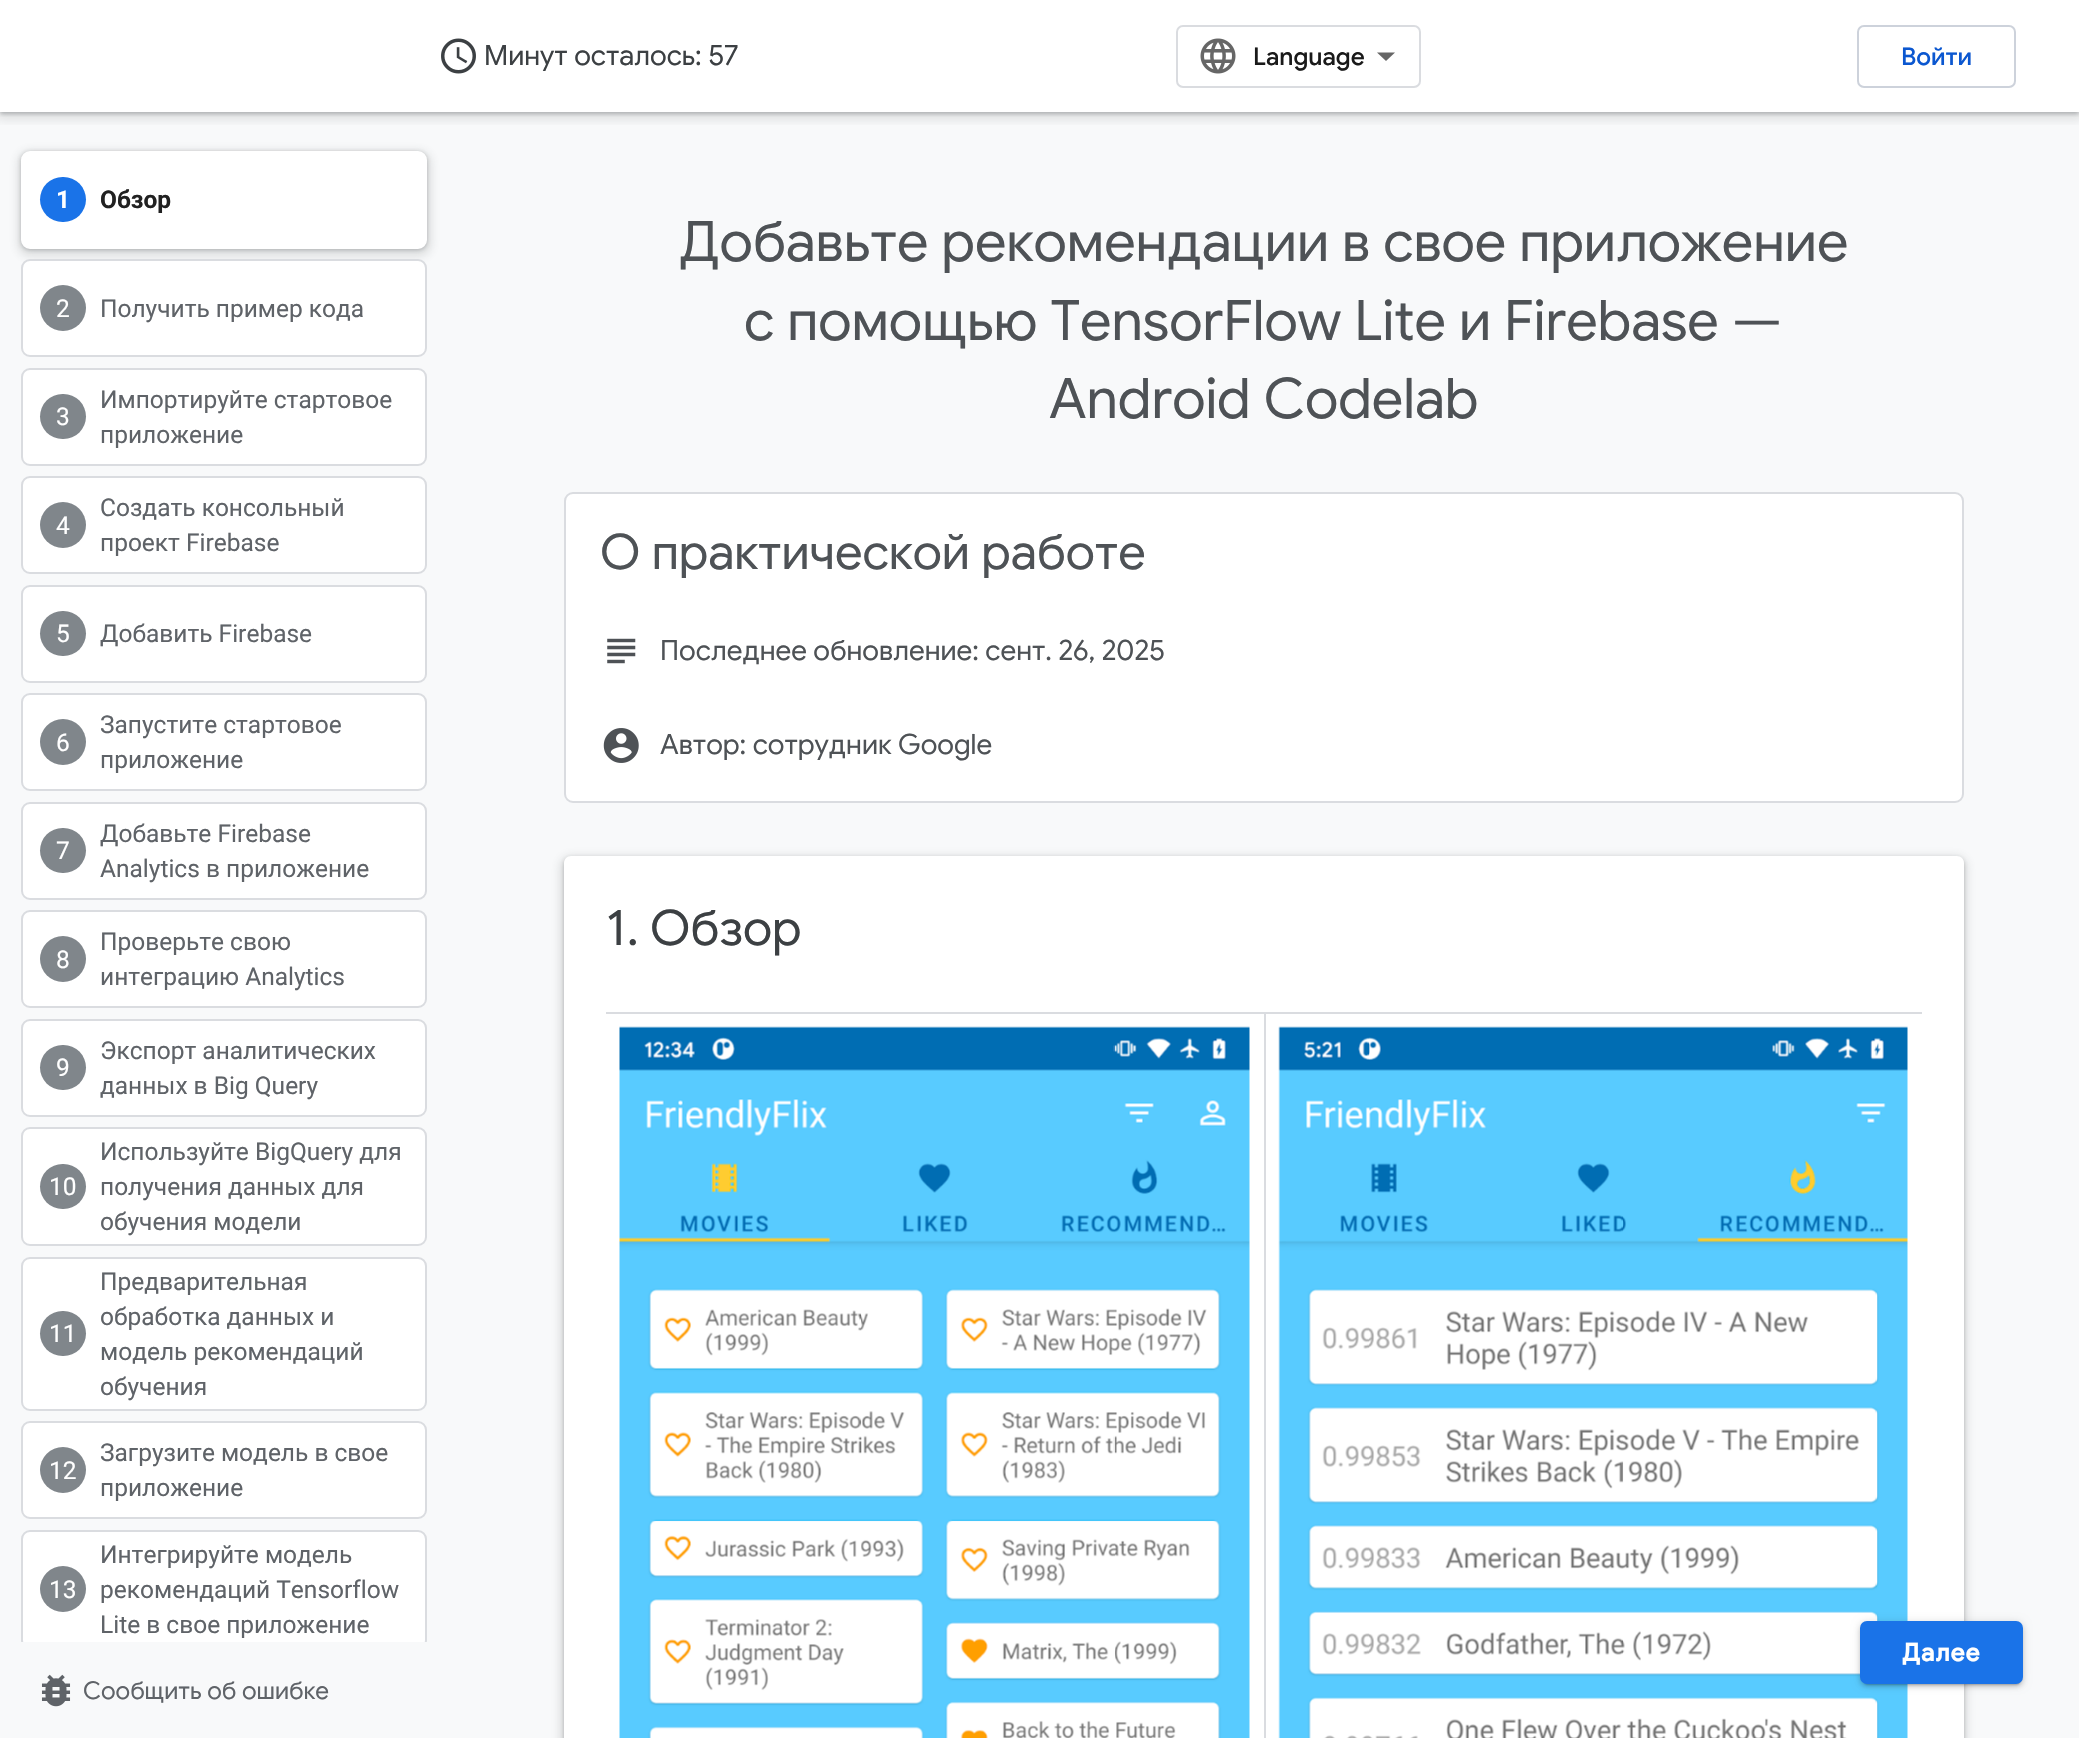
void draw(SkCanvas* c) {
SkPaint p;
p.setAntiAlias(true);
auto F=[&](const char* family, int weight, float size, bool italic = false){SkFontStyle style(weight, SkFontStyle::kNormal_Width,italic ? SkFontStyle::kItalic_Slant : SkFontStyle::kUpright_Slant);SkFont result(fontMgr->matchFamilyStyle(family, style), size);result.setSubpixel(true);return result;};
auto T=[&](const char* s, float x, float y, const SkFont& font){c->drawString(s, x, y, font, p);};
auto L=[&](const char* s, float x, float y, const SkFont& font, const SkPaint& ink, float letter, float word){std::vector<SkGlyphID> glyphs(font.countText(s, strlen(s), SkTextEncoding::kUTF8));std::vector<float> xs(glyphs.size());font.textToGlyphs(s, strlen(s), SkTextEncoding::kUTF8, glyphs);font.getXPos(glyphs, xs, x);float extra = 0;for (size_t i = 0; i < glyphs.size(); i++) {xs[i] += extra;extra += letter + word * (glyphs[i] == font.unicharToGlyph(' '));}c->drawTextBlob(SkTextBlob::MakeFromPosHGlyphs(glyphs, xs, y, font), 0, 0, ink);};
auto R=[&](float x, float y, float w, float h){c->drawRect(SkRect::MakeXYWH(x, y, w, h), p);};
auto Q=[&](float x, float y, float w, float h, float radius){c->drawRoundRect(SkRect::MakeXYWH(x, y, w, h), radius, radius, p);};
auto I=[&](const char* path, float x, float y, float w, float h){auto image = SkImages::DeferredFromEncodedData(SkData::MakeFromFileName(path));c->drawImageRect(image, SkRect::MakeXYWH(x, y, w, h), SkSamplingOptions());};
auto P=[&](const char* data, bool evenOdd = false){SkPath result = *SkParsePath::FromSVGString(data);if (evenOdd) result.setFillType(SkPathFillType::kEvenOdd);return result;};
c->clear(0xffffffff);
p.setColor(0xfff8f9fa);
R(448,112,1631,1626);
R(0,112,448,1626);
c->save();
c->clipRect(SkRect::MakeXYWH(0,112,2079,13));
p.setColor(0x263c4043);
p.setMaskFilter(SkMaskFilter::MakeBlur(kNormal_SkBlurStyle, 5));
c->drawRect(SkRect::MakeXYWH(-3,0,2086,119),p);
p.setMaskFilter(nullptr);
c->restore();
c->save();
c->clipRect(SkRect::MakeXYWH(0,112,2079,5));
p.setColor(0x4d3c4043);
p.setMaskFilter(SkMaskFilter::MakeBlur(kNormal_SkBlurStyle, 2));
c->drawRect(SkRect::MakeXYWH(0,2,2079,112),p);
p.setMaskFilter(nullptr);
c->restore();
I("1.png",441,38,35,36);
auto f1 = F("Google Sans",400,28);
p.setColor(0xff3c4043);
T("Минут осталось: 57",484,65,f1);
p.setStroke(true);
p.setStrokeWidth(2);
p.setColor(0xffdadce0);
c->drawRoundRect(SkRect::MakeXYWH(1177,26,243,61),6,6,p);
I("2.png",1200,38,36,36);
auto f2 = F("Google Sans",500,24.5);
p.setStroke(false);
p.setColor(0xff1a1a1a);
T("Language",1253,65,f2);
p.setColor(0xff666666);
c->drawPath(P("M1386 61l-9-8.5h18z"),p);
p.setStroke(true);
p.setColor(0xffcdd2db);
c->drawRoundRect(SkRect::MakeXYWH(1858,26,157,61),6,6,p);
p.setStroke(false);
p.setColor(0xff0b57d0);
T("Войти",1901,65,f2);
p.setColor(0x263c4043);
p.setMaskFilter(SkMaskFilter::MakeBlur(kNormal_SkBlurStyle, 5));
c->drawRoundRect(SkRect::MakeXYWH(18,151,413,105),12,12,p);
p.setMaskFilter(nullptr);
p.setColor(0x4d3c4043);
p.setMaskFilter(SkMaskFilter::MakeBlur(kNormal_SkBlurStyle, 2));
c->drawRoundRect(SkRect::MakeXYWH(21,152,406,98),9,9,p);
p.setMaskFilter(nullptr);
p.setColor(0xffffffff);
c->drawRoundRect(SkRect::MakeXYWH(22,152,404,96),8,8,p);
p.setStroke(true);
c->drawRoundRect(SkRect::MakeXYWH(22,152,404,96),8,8,p);
p.setStroke(false);
p.setColor(0xff1a73e8);
Q(40,177,46,45,22.5);
auto f3 = F("Roboto",700,24.5);
p.setColor(0xffffffff);
T("1",56,208,f3);
p.setColor(0xff212121);
T("Обзор",100,208,f3);
p.setColor(0xffffffff);
c->drawRoundRect(SkRect::MakeXYWH(22,260,404,96),8,8,p);
p.setStroke(true);
p.setColor(0xffdadce0);
c->drawRoundRect(SkRect::MakeXYWH(22,260,404,96),8,8,p);
p.setStroke(false);
p.setColor(0xff80868b);
c->drawCircle(63,308,23,p);
auto f4 = F("Roboto",400,24.5);
p.setColor(0xffffffff);
T("2",56,317,f4);
p.setColor(0xff5f6368);
T("Получить пример кода",100,317,f4);
p.setColor(0xffffffff);
c->drawRoundRect(SkRect::MakeXYWH(22,369,404,96),8,8,p);
p.setStroke(true);
p.setColor(0xffdadce0);
c->drawRoundRect(SkRect::MakeXYWH(22,369,404,96),8,8,p);
p.setStroke(false);
p.setColor(0xff80868b);
Q(40,394,46,45,22.5);
p.setColor(0xffffffff);
T("3",56,425,f4);
p.setColor(0xff5f6368);
T("Импортируйте стартовое",100,408,f4);
T("приложение",100,443,f4);
p.setColor(0xffffffff);
c->drawRoundRect(SkRect::MakeXYWH(22,477,404,96),8,8,p);
p.setStroke(true);
p.setColor(0xffdadce0);
c->drawRoundRect(SkRect::MakeXYWH(22,477,404,96),8,8,p);
p.setStroke(false);
p.setColor(0xff80868b);
c->drawCircle(63,525,23,p);
p.setColor(0xffffffff);
T("4",56,534,f4);
p.setColor(0xff5f6368);
T("Создать консольный",100,516,f4);
T("проект Firebase",100,551,f4);
p.setColor(0xffffffff);
c->drawRoundRect(SkRect::MakeXYWH(22,586,404,96),8,8,p);
p.setStroke(true);
p.setColor(0xffdadce0);
c->drawRoundRect(SkRect::MakeXYWH(22,586,404,96),8,8,p);
p.setStroke(false);
p.setColor(0xff80868b);
Q(40,611,46,45,22.5);
p.setColor(0xffffffff);
T("5",56,642,f4);
p.setColor(0xff5f6368);
T("Добавить Firebase",100,642,f4);
p.setColor(0xffffffff);
c->drawRoundRect(SkRect::MakeXYWH(22,694,404,96),8,8,p);
p.setStroke(true);
p.setColor(0xffdadce0);
c->drawRoundRect(SkRect::MakeXYWH(22,694,404,96),8,8,p);
p.setStroke(false);
p.setColor(0xff80868b);
c->drawCircle(63,742,23,p);
p.setColor(0xffffffff);
T("6",56,751,f4);
p.setColor(0xff5f6368);
T("Запустите стартовое",100,733,f4);
T("приложение",100,768,f4);
p.setColor(0xffffffff);
c->drawRoundRect(SkRect::MakeXYWH(22,803,404,96),8,8,p);
p.setStroke(true);
p.setColor(0xffdadce0);
c->drawRoundRect(SkRect::MakeXYWH(22,803,404,96),8,8,p);
p.setStroke(false);
p.setColor(0xff80868b);
Q(40,828,46,45,22.5);
p.setColor(0xffffffff);
T("7",56,859,f4);
p.setColor(0xff5f6368);
T("Добавьте Firebase",100,842,f4);
T("Analytics в приложение",100,877,f4);
p.setColor(0xffffffff);
c->drawRoundRect(SkRect::MakeXYWH(22,911,404,96),8,8,p);
p.setStroke(true);
p.setColor(0xffdadce0);
c->drawRoundRect(SkRect::MakeXYWH(22,911,404,96),8,8,p);
p.setStroke(false);
p.setColor(0xff80868b);
c->drawCircle(63,959,23,p);
p.setColor(0xffffffff);
T("8",56,968,f4);
p.setColor(0xff5f6368);
T("Проверьте свою",100,950,f4);
T("интеграцию Analytics",100,985,f4);
p.setColor(0xffffffff);
c->drawRoundRect(SkRect::MakeXYWH(22,1020,404,96),8,8,p);
p.setStroke(true);
p.setColor(0xffdadce0);
c->drawRoundRect(SkRect::MakeXYWH(22,1020,404,96),8,8,p);
p.setStroke(false);
p.setColor(0xff80868b);
Q(40,1045,46,45,22.5);
p.setColor(0xffffffff);
T("9",56,1076,f4);
p.setColor(0xff5f6368);
T("Экспорт аналитических",100,1059,f4);
T("данных в Big Query",100,1094,f4);
p.setColor(0xffffffff);
c->drawRoundRect(SkRect::MakeXYWH(22,1128,404,117),8,8,p);
p.setStroke(true);
p.setColor(0xffdadce0);
c->drawRoundRect(SkRect::MakeXYWH(22,1128,404,117),8,8,p);
p.setStroke(false);
p.setColor(0xff80868b);
Q(40,1164,46,45,22.5);
p.setColor(0xffffffff);
T("10",49,1195,f4);
p.setColor(0xff5f6368);
T("Используйте BigQuery для",100,1160,f4);
T("получения данных для",100,1195,f4);
T("обучения модели",100,1230,f4);
p.setColor(0xffffffff);
c->drawRoundRect(SkRect::MakeXYWH(22,1258,404,152),8,8,p);
p.setStroke(true);
p.setColor(0xffdadce0);
c->drawRoundRect(SkRect::MakeXYWH(22,1258,404,152),8,8,p);
p.setStroke(false);
p.setColor(0xff80868b);
Q(40,1311,46,45,22.5);
p.setColor(0xffffffff);
T("11",49,1342,f4);
p.setColor(0xff5f6368);
T("Предварительная",100,1290,f4);
T("обработка данных и",100,1325,f4);
T("модель рекомендаций",100,1360,f4);
T("обучения",100,1395,f4);
p.setColor(0xffffffff);
c->drawRoundRect(SkRect::MakeXYWH(22,1422,404,96),8,8,p);
p.setStroke(true);
p.setColor(0xffdadce0);
c->drawRoundRect(SkRect::MakeXYWH(22,1422,404,96),8,8,p);
p.setStroke(false);
p.setColor(0xff80868b);
c->drawCircle(63,1470,23,p);
p.setColor(0xffffffff);
T("12",49,1479,f4);
p.setColor(0xff5f6368);
T("Загрузите модель в свое",100,1461,f4);
T("приложение",100,1496,f4);
c->save();
c->clipRect(SkRect::MakeXYWH(0,112,448,1530));
p.setColor(0xffffffff);
c->drawRoundRect(SkRect::MakeXYWH(22,1531,404,117),8,8,p);
p.setStroke(true);
p.setColor(0xffdadce0);
c->drawRoundRect(SkRect::MakeXYWH(22,1531,404,117),8,8,p);
c->restore();
p.setStroke(false);
p.setColor(0xff80868b);
c->drawCircle(63,1589,23,p);
p.setColor(0xffffffff);
T("13",49,1598,f4);
p.setColor(0xff5f6368);
T("Интегрируйте модель",100,1563,f4);
T("рекомендаций Tensorflow",100,1598,f4);
T("Lite в свое приложение",100,1633,f4);
auto f5 = F("Google Sans",400,56);
p.setColor(0xff4e5256);
T("Добавьте рекомендации в свое приложение",679,261,f5);
T("с помощью TensorFlow Lite и Firebase —",744,340,f5);
T("Android Codelab",1049,418,f5);
p.setColor(0xffffffff);
c->drawRoundRect(SkRect::MakeXYWH(565,493,1398,309),8,8,p);
p.setStroke(true);
p.setColor(0xffdadce0);
c->drawRoundRect(SkRect::MakeXYWH(565,493,1398,309),8,8,p);
c->save();
c->clipRect(SkRect::MakeXYWH(600,529,1327,49));
auto f6 = F("Google Sans",400,49);
p.setStroke(false);
p.setColor(0xff4e5256);
T("О практической работе",600,569,f6);
c->restore();
I("3.png",607,638,29,26);
T("Последнее обновление: сент. 26, 2025",660,660,f1);
I("4.png",603,728,36,35);
T("Автор: сотрудник Google",660,754,f1);
p.setColor(0x263c4043);
p.setMaskFilter(SkMaskFilter::MakeBlur(kNormal_SkBlurStyle, 5));
c->drawRoundRect(SkRect::MakeXYWH(560,856,1407,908),11,11,p);
p.setMaskFilter(nullptr);
p.setColor(0x4d3c4043);
p.setMaskFilter(SkMaskFilter::MakeBlur(kNormal_SkBlurStyle, 2));
c->drawRoundRect(SkRect::MakeXYWH(564,858,1400,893),7,7,p);
p.setMaskFilter(nullptr);
p.setColor(0xffffffff);
c->drawPath(P("M571 856h1386c4 0 7 3 7 7v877h-1400v-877c0-4 3-7 7-7z"),p);
p.setColor(0xff3c4043);
T("1. Обзор",606,945,f6);
p.setColor(0xffdadce0);
R(606,1012,1316,2);
R(1264,1012,2,726);
I("5.png",619,1026,631,712);
I("6.png",1278,1026,630,712);
p.setColor(0x33000000);
p.setMaskFilter(SkMaskFilter::MakeBlur(kNormal_SkBlurStyle, 1));
c->drawRoundRect(SkRect::MakeXYWH(1864,1629,156,56),4,4,p);
p.setMaskFilter(nullptr);
p.setColor(0x1f000000);
p.setMaskFilter(SkMaskFilter::MakeBlur(kNormal_SkBlurStyle, 4.5));
c->drawRoundRect(SkRect::MakeXYWH(1860,1622,163,63),7,7,p);
p.setMaskFilter(nullptr);
p.setColor(0x24000000);
p.setMaskFilter(SkMaskFilter::MakeBlur(kNormal_SkBlurStyle, 2));
c->drawRoundRect(SkRect::MakeXYWH(1860,1624,163,63),7,7,p);
p.setMaskFilter(nullptr);
p.setColor(0xff1a73e8);
Q(1860,1621,163,63,7);
auto f7 = F("Google Sans",700,24.5);
p.setColor(0xffffffff);
L("Далее",1902,1661,f7,p,1,0);
I("7.png",41,1674,30,33);
auto f8 = F("Google Sans",400,24.5);
p.setColor(0xff5f6368);
T("Сообщить об ошибке",83,1699,f8);
}
